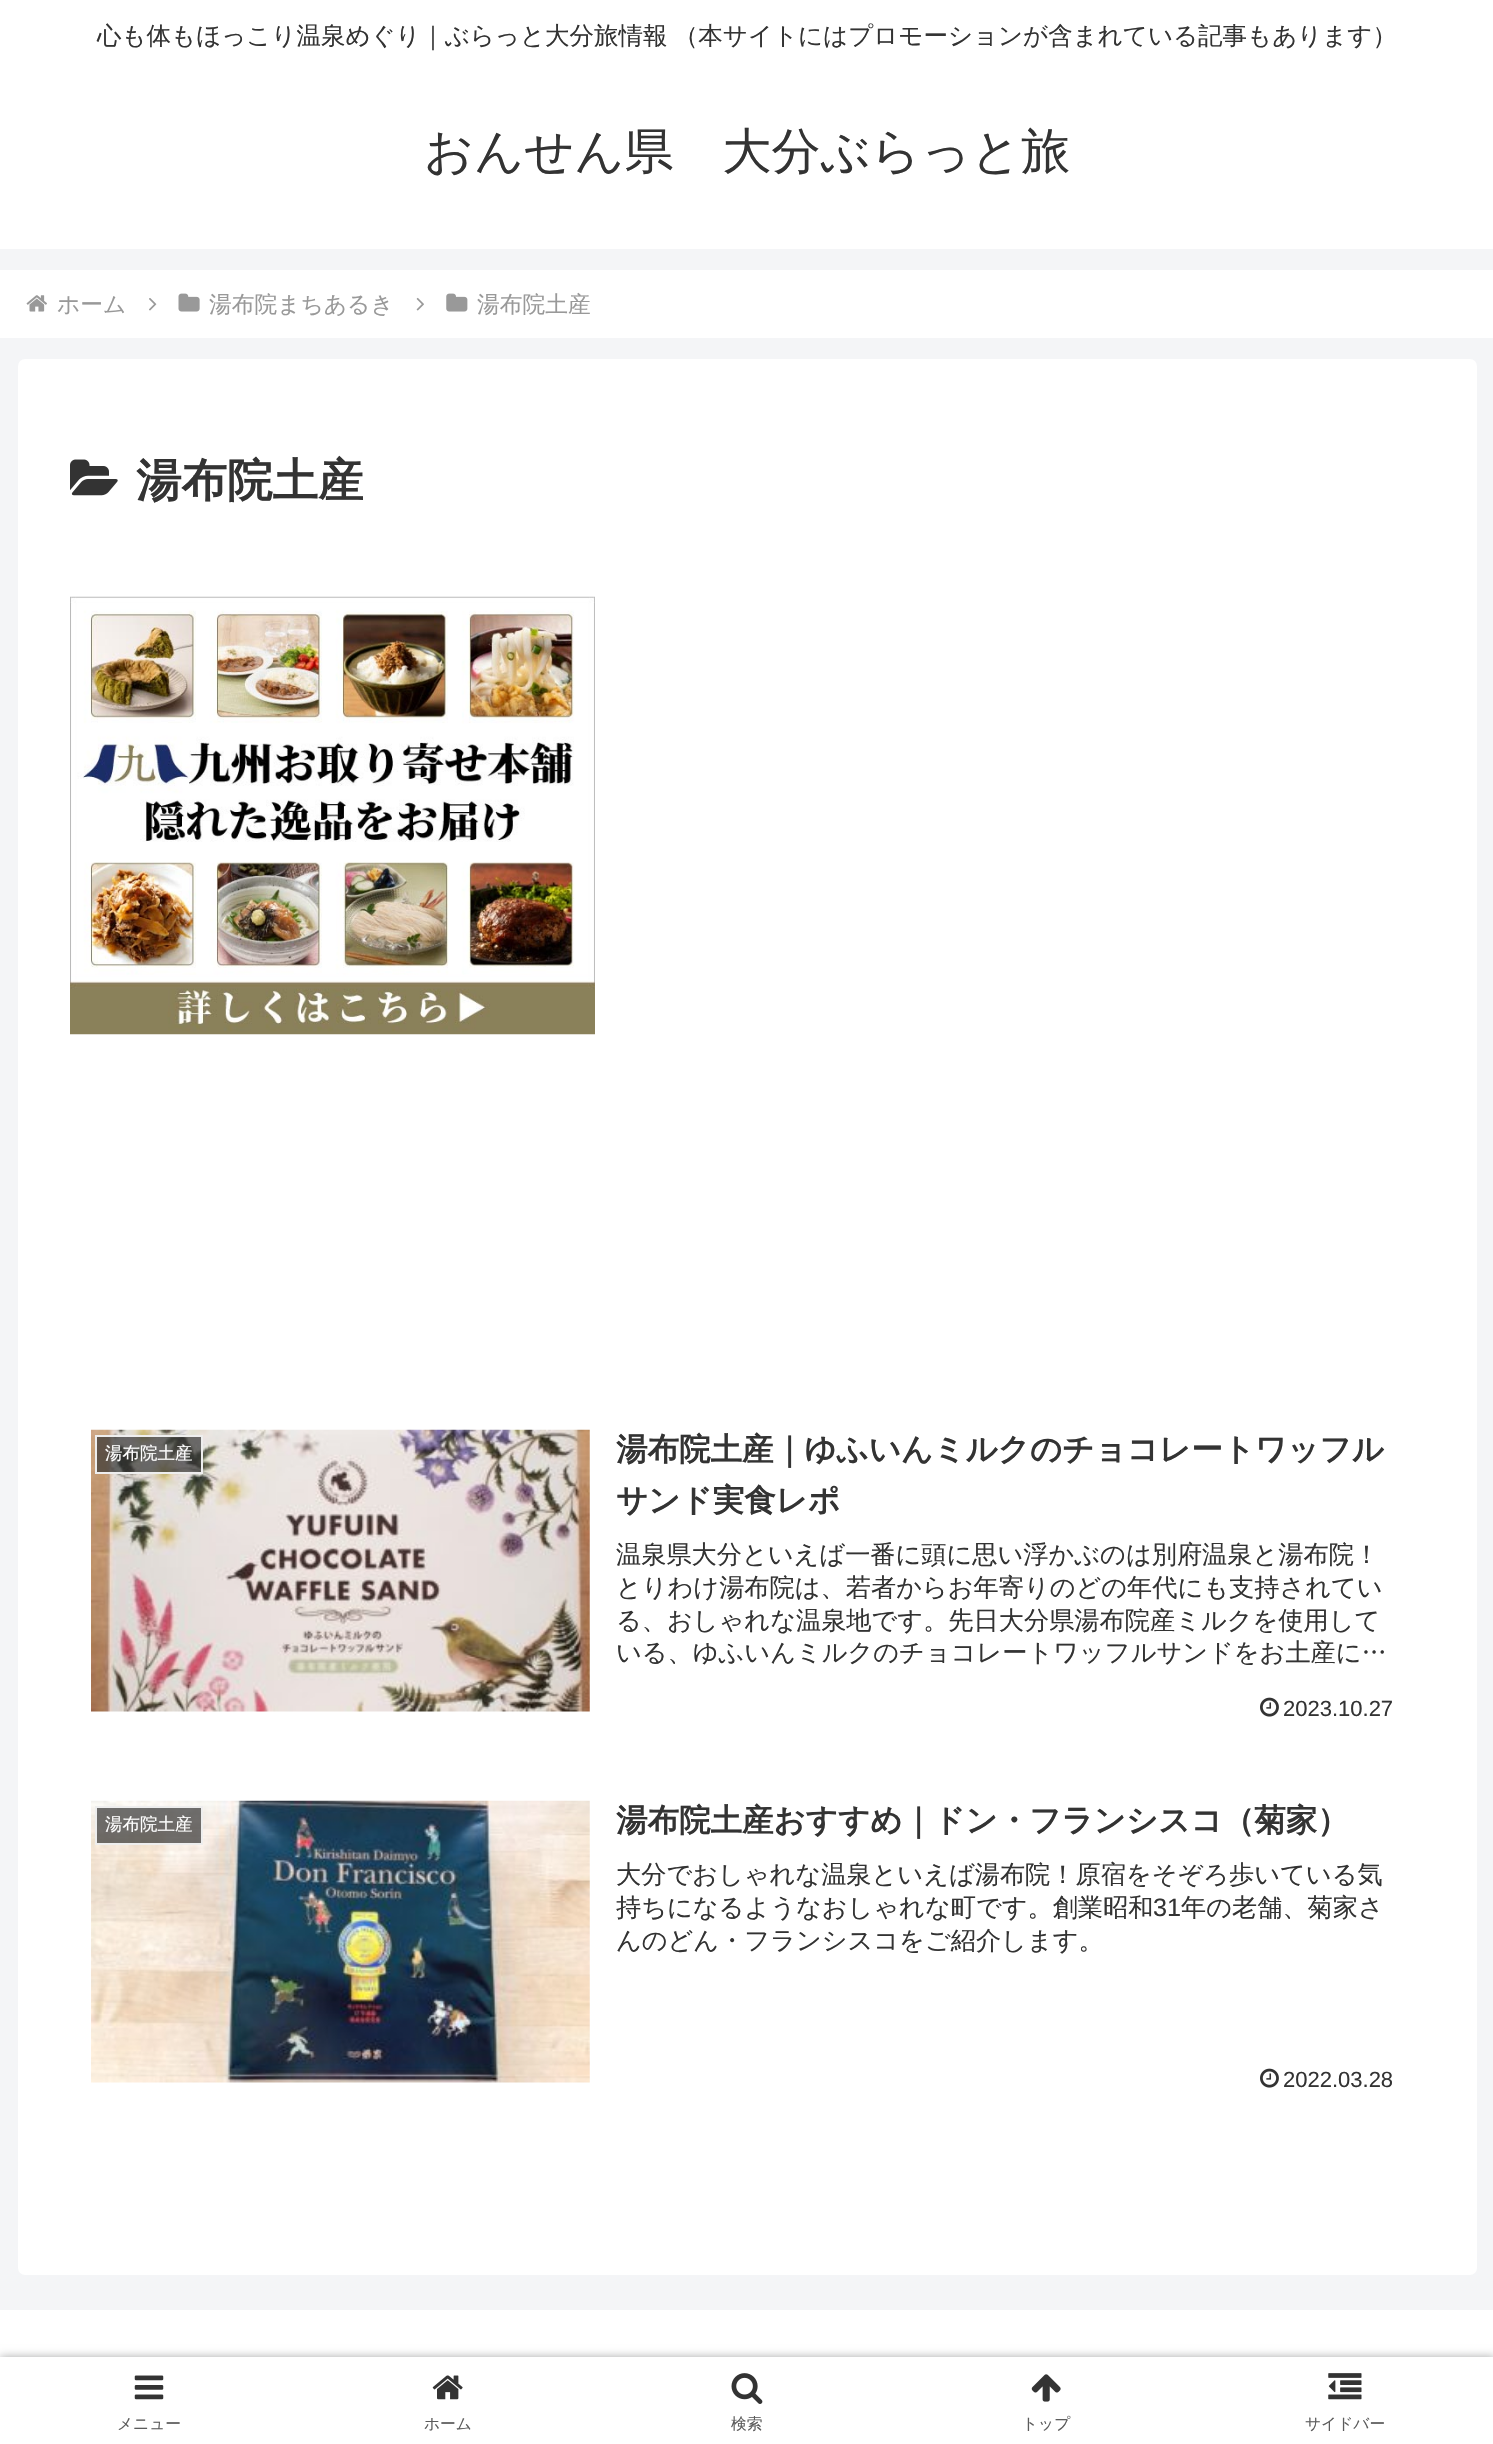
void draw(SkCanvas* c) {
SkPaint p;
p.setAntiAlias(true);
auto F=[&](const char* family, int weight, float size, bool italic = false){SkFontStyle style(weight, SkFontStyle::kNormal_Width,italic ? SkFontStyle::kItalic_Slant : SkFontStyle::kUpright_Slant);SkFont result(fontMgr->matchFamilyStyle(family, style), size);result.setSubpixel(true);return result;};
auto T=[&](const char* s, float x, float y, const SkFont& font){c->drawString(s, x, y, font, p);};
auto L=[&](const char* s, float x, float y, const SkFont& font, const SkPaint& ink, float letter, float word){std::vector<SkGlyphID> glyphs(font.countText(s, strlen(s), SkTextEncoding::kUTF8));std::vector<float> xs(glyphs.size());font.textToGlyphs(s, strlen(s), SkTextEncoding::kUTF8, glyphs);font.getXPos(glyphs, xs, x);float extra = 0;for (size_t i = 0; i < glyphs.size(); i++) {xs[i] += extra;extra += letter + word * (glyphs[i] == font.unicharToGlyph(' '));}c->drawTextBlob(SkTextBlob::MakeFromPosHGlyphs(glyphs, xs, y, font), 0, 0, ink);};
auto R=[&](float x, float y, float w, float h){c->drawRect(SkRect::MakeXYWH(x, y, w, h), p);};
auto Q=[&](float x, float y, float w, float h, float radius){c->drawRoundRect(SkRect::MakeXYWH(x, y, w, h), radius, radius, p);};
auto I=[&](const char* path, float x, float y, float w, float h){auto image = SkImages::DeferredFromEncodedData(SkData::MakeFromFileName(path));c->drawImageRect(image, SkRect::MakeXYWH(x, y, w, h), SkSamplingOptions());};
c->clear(0xfff4f5f7);
p.setColor(0xffffffff);
R(0,0,1493,249);
auto f1 = F("WenQuanYi Zen Hei",500,24.5);
p.setColor(0xff333333);
L("心も体もほっこり温泉めぐり｜ぶらっと大分旅情報 （本サイトにはプロモーションが含まれている記事もあります）",97,44,f1,p,0,-1);
auto f2 = F("WenQuanYi Zen Hei",500,49);
T("おんせん県　大分ぶらっと旅",424,168,f2);
p.setColor(0xffffffff);
R(0,270,1493,68);
I("1.png",26,295,21,17);
auto f3 = F("WenQuanYi Zen Hei",500,22.75);
p.setColor(0xff999999);
T("ホーム",57,312,f3);
I("2.png",149,298,8,13);
I("3.png",178,293,22,19);
T("湯布院まちあるき",209,312,f3);
I("4.png",416,297,8,14);
I("5.png",446,293,22,19);
T("湯布院土産",477,312,f3);
p.setColor(0xffffffff);
Q(18,359,1459,1916,7);
I("6.png",70,459,48,37);
auto f4 = F("WenQuanYi Zen Hei",700,45.5);
p.setColor(0xff333333);
T("湯布院土産",136,496,f4);
I("7.png",70,596,525,439);
I("8.png",91,1429,499,283);
p.setColor(0xb3333333);
c->drawRect(SkRect::MakeXYWH(96,1436,106,37),p);
p.setStroke(true);
p.setStrokeWidth(2);
p.setColor(0xffeeeeee);
c->drawRect(SkRect::MakeXYWH(96,1436,106,37),p);
auto f5 = F("WenQuanYi Zen Hei",500,17.5);
p.setStroke(false);
p.setColor(0xffffffff);
T("湯布院土産",105,1459,f5);
auto f6 = F("WenQuanYi Zen Hei",700,31.5);
p.setColor(0xff333333);
T("湯布院土産｜ゆふいんミルクのチョコレートワッフル",616,1460,f6);
T("サンド実食レポ",616,1511,f6);
auto f7 = F("WenQuanYi Zen Hei",500,25.2);
T("温泉県大分といえば一番に頭に思い浮かぶのは別府温泉と湯布院！",616,1563,f7);
T("とりわけ湯布院は、若者からお年寄りのどの年代にも支持されてい",616,1596,f7);
T("る、おしゃれな温泉地です。先日大分県湯布院産ミルクを使用して",616,1629,f7);
T("いる、ゆふいんミルクのチョコレートワッフルサンドをお土産に…",616,1661,f7);
I("9.png",1260,1697,19,20);
auto f8 = F("Liberation Sans",400,22);
T("2023.10.27",1283,1716,f8);
I("10.png",91,1800,499,283);
p.setColor(0xb3333333);
c->drawRect(SkRect::MakeXYWH(96,1807,106,37),p);
p.setStroke(true);
p.setColor(0xffeeeeee);
c->drawRect(SkRect::MakeXYWH(96,1807,106,37),p);
p.setStroke(false);
p.setColor(0xffffffff);
T("湯布院土産",105,1830,f5);
p.setColor(0xff333333);
T("湯布院土産おすすめ｜ドン・フランシスコ（菊家）",616,1831,f6);
T("大分でおしゃれな温泉といえば湯布院！原宿をそぞろ歩いている気",616,1883,f7);
T("持ちになるようなおしゃれな町です。創業昭和",616,1916,f7);
auto f9 = F("Liberation Sans",400,25.2);
T("31",1153,1916,f9);
T("年の老舗、菊家さ",1181,1916,f7);
T("んのどん・フランシスコをご紹介します。",616,1949,f7);
I("9.png",1260,2068,19,20);
T("2022.03.28",1283,2087,f8);
p.setColor(0xffffffff);
R(0,2310,1493,47);
p.setColor(0xffa9a9a9);
p.setMaskFilter(SkMaskFilter::MakeBlur(kNormal_SkBlurStyle, 4.5));
c->drawRect(SkRect::MakeXYWH(0,2357,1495,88),p);
p.setMaskFilter(nullptr);
p.setColor(0xffffffff);
R(0,2357,1493,87);
I("11.png",134,2375,30,25);
auto f10 = F("WenQuanYi Zen Hei",500,15.75);
p.setColor(0xff5c5c5c);
T("メニュー",117,2429,f10);
I("12.png",432,2375,31,25);
T("ホーム",424,2429,f10);
I("13.png",731,2373,32,31);
T("検索",731,2429,f10);
I("14.png",1031,2374,30,28);
T("トップ",1022,2429,f10);
I("15.png",1328,2373,34,27);
T("サイドバー",1305,2429,f10);
}
